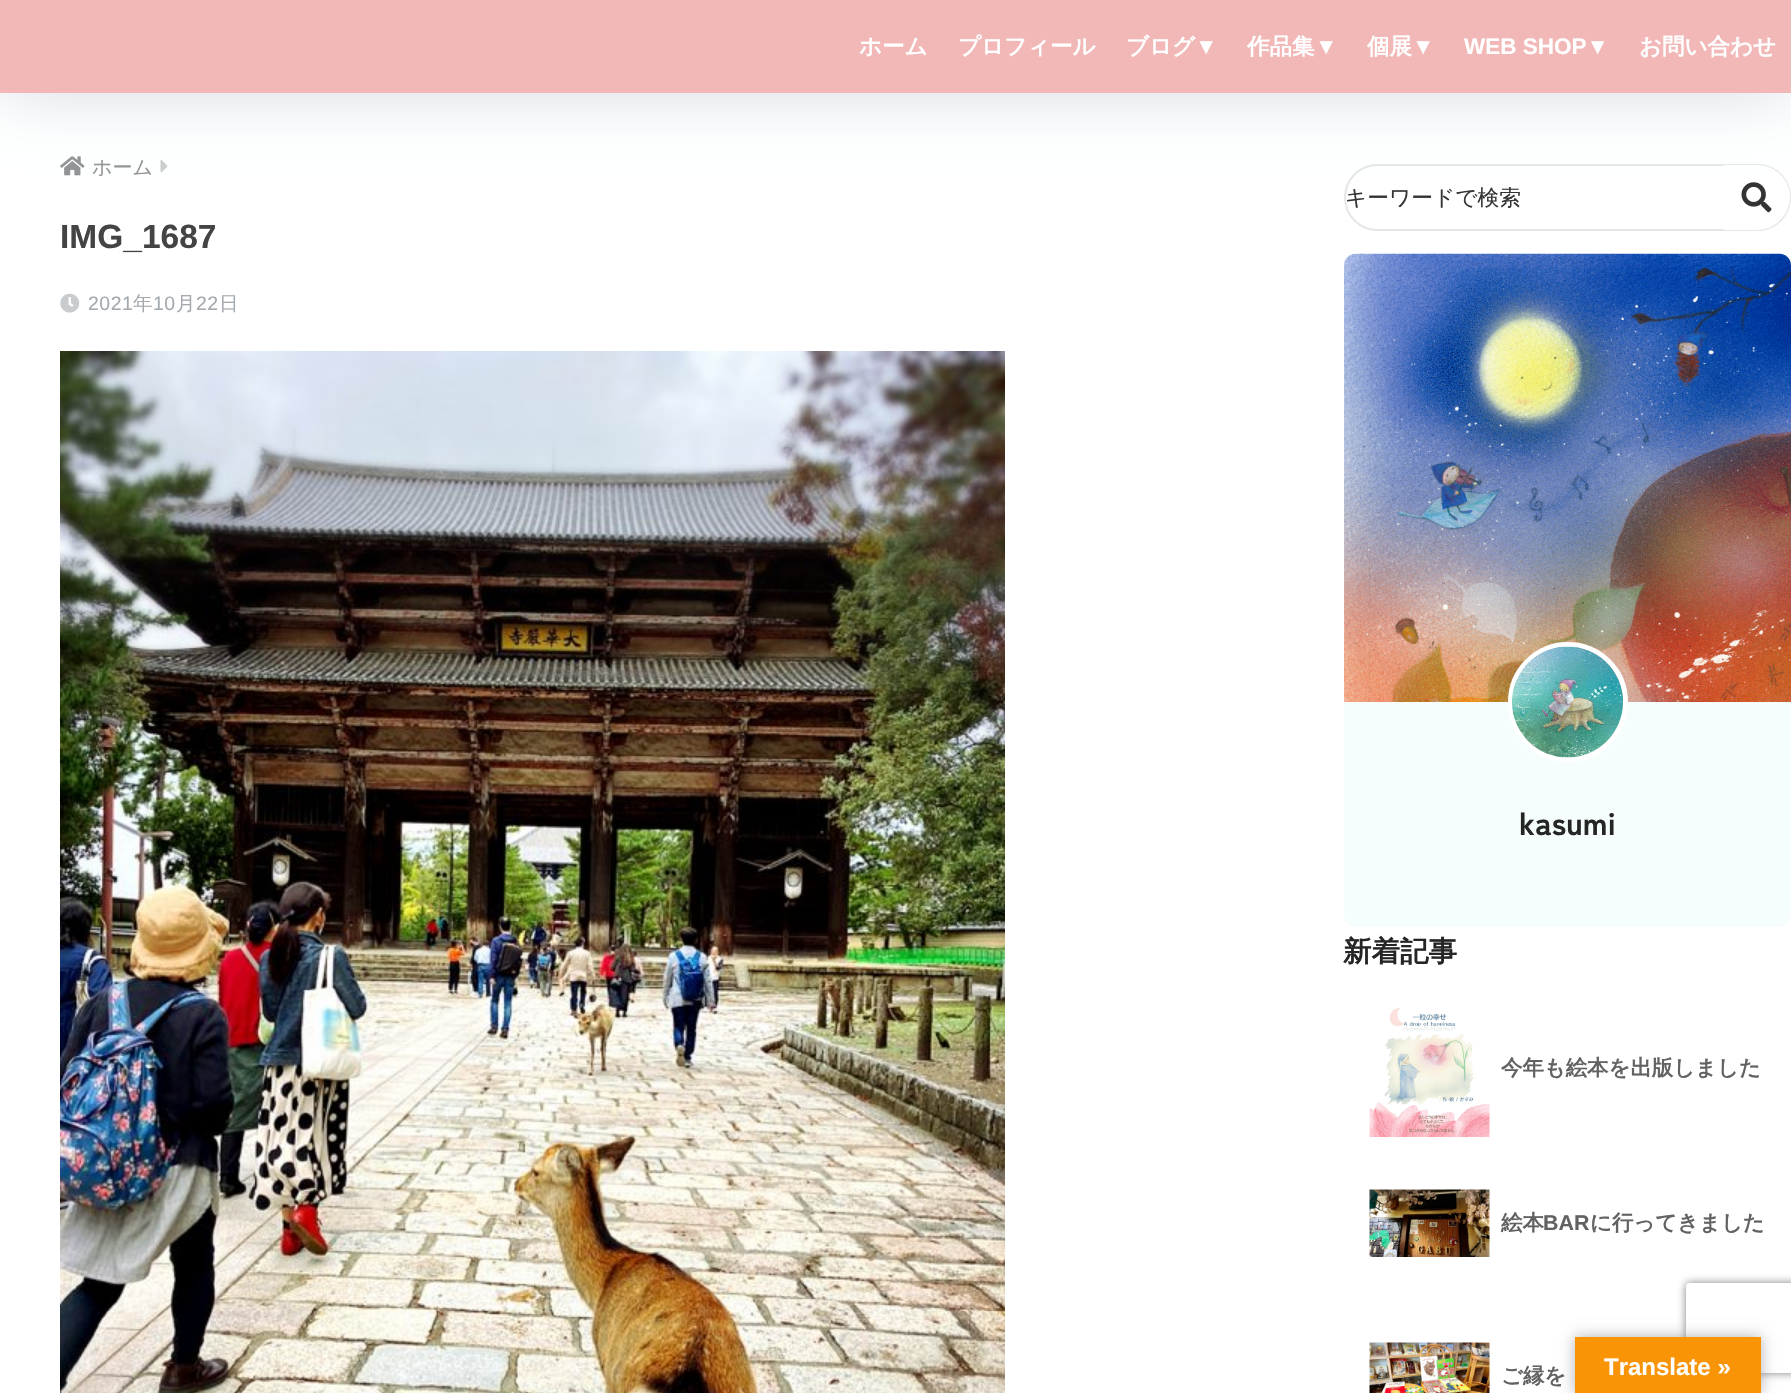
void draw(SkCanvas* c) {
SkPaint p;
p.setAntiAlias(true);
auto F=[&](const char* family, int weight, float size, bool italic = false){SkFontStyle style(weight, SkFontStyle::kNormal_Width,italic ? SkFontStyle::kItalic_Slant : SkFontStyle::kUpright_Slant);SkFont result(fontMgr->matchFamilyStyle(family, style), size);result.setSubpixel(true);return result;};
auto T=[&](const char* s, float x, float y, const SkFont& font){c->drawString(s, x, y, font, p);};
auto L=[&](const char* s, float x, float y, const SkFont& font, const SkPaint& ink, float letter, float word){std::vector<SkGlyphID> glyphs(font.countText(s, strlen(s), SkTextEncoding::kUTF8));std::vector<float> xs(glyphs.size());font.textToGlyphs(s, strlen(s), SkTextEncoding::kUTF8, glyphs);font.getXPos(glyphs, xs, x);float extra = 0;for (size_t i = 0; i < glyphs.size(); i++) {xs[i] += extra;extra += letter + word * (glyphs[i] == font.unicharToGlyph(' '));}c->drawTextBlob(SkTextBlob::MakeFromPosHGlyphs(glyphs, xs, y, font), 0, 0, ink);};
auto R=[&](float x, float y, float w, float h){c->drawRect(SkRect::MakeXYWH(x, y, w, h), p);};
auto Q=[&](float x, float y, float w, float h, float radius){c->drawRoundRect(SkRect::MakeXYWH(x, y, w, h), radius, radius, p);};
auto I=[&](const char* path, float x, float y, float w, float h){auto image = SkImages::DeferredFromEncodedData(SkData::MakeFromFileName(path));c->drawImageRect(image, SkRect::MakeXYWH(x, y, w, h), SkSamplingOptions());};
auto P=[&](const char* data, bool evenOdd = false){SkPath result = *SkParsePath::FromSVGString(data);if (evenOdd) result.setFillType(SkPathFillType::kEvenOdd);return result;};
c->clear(0xffffffff);
I("1.png",60,156,25,20);
I("2.png",160,160,8,13);
p.setStroke(true);
p.setStrokeWidth(2);
p.setColor(0xffe6e6e6);
c->drawRoundRect(SkRect::MakeXYWH(1345,165,445,65),32.5,32.5,p);
p.setStroke(false);
p.setColor(0xffffffff);
c->drawPath(P("M1724 164h33.5c18.5 0 33.5 15 33.5 33.5c0 18.5-15 33.5-33.5 33.5h-33.5z"),p);
p.setColor(0xffe6e6e6);
c->drawPath(P("M1724 164h33c19 0 34 15 34 33c0 19-15 34-34 34h-33zm0 1h33c18 0 33 14 33 32c0 18-15 33-33 33h-33z",true),p);
I("5.png",1741,182,31,31);
p.setColor(0x26000c42);
p.setMaskFilter(SkMaskFilter::MakeBlur(kNormal_SkBlurStyle, 34));
c->drawRect(SkRect::MakeXYWH(0,0,1791,93),p);
p.setMaskFilter(nullptr);
p.setColor(0xfff2b8b8);
R(0,0,1791,93);
auto f1 = F("WenQuanYi Zen Hei",700,22.5);
p.setColor(0xffffffff);
T("ホーム",859,54,f1);
T("プロフィール",958,54,f1);
T("ブログ",1126,54,f1);
auto f2 = F("Liberation Sans",700,22.5);
T("▼",1195,54,f2);
T("作品集",1247,54,f1);
T("▼",1315,54,f2);
T("個展",1367,54,f1);
T("▼",1412,54,f2);
T("WEB SHOP▼",1464,54,f2);
T("お問い合わせ",1639,54,f1);
auto f3 = F("WenQuanYi Zen Hei",500,20);
p.setColor(0xff949495);
T("ホーム",92,174,f3);
auto f4 = F("Liberation Sans",700,33.5);
p.setColor(0xff444444);
T("IMG_1687",60,248,f4);
I("3.png",60,293,20,20);
auto f5 = F("Liberation Sans",400,19.5);
p.setColor(0xffa5aaaf);
L("2021",88,310,f5,p,.5,0);
auto f6 = F("WenQuanYi Zen Hei",500,19.5);
L("年",133,310,f6,p,.5,0);
L("10",153,310,f5,p,.5,0);
L("月",176,310,f6,p,.5,0);
L("22",196,310,f5,p,.5,0);
L("日",219,310,f6,p,.5,0);
I("4.png",60,351,945,1042);
auto f7 = F("WenQuanYi Zen Hei",500,21.75);
p.setColor(0xff333333);
T("キーワードで検索",1345,205,f7);
p.setColor(0xfff6fdfd);
Q(1344,254,447,673,12);
I("6.png",1344,253,447,449);
p.setStroke(true);
p.setStrokeWidth(5);
p.setColor(0xffffffff);
c->drawCircle(1568,702,57.5,p);
I("7.png",1512,646,111,112);
auto f8 = F("Zen Kaku Gothic New",700,31.5);
p.setStroke(false);
p.setColor(0xff252525);
T("kasumi",1519,835,f8);
auto f9 = F("WenQuanYi Zen Hei",700,28.5);
T("新着記事",1343,961,f9);
I("8.png",1369,1008,121,129);
auto f10 = F("WenQuanYi Zen Hei",700,21.4);
p.setColor(0xff626262);
T("今年も絵本を出版しました",1501,1075,f10);
I("9.png",1369,1189,121,68);
T("絵本",1501,1230,f10);
auto f11 = F("Liberation Sans",700,21.4);
T("BAR",1543,1230,f11);
T("に行ってきました",1590,1230,f10);
I("10.png",1369,1342,121,51);
T("ご縁を",1501,1383,f10);
p.setColor(0x4d000000);
p.setMaskFilter(SkMaskFilter::MakeBlur(kNormal_SkBlurStyle, 7));
c->drawRect(SkRect::MakeXYWH(1575,1337,186,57),p);
p.setMaskFilter(nullptr);
c->save();
c->clipPath(P("M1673 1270h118v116h-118zm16 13h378c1.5 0 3 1.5 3 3v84c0 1.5-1.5 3-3 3h-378c-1.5 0-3-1.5-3-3v-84c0-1.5 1.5-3 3-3z",true),true);
p.setColor(0xff808080);
p.setMaskFilter(SkMaskFilter::MakeBlur(kNormal_SkBlurStyle, 4));
c->drawRoundRect(SkRect::MakeXYWH(1686,1283,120,90),3,3,p);
p.setMaskFilter(nullptr);
c->restore();
p.setColor(0xfff89406);
R(1575,1337,186,56);
auto f12 = F("Liberation Sans",700,24);
p.setColor(0xffffffff);
T("Translate »",1604,1375,f12);
}
